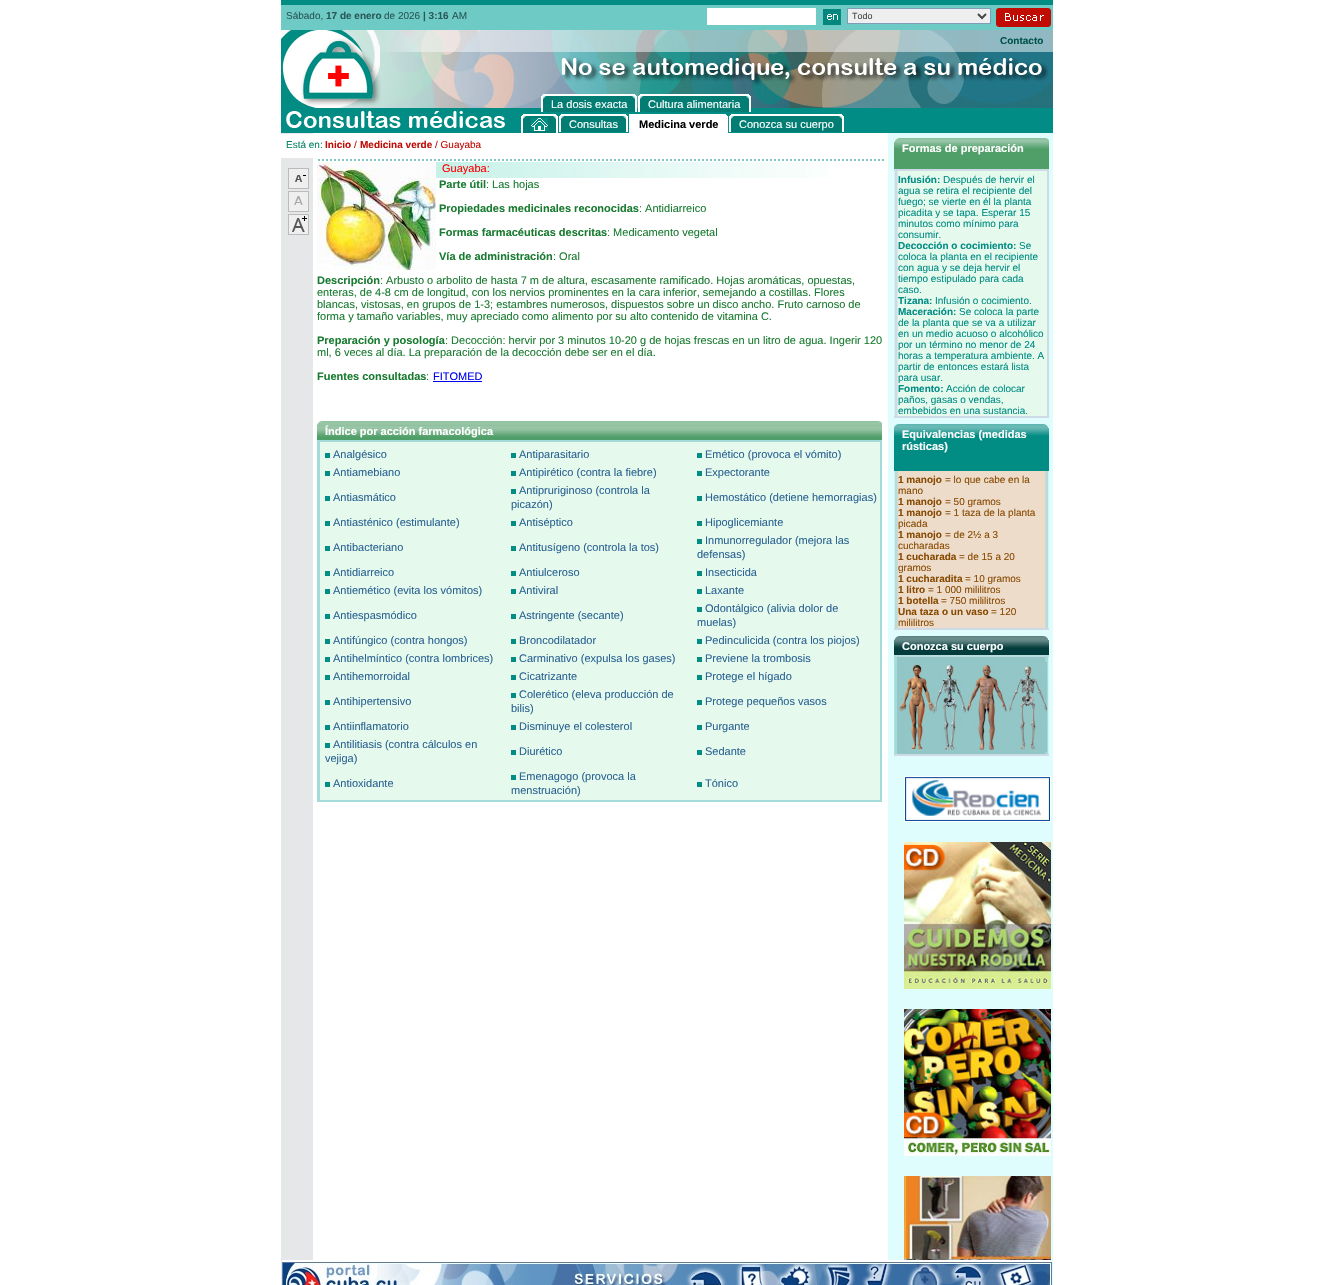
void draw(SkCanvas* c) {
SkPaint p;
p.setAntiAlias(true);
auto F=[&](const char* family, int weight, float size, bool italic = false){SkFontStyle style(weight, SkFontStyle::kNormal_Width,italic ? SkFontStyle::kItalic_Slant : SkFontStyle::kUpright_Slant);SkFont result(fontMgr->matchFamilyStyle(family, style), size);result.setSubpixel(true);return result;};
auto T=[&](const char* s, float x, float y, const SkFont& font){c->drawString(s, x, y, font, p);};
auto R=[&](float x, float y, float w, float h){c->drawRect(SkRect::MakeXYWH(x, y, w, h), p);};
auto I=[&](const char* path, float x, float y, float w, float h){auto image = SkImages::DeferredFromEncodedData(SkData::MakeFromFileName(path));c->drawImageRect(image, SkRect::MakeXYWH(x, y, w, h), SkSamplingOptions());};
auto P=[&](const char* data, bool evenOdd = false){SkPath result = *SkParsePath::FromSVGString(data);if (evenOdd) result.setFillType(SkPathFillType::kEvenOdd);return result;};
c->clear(0xffffffff);
p.setColor(0xff018c84);
R(281,0,772,5);
p.setColor(0xff6dcac5);
R(281,5,772,25);
auto f1 = F("Liberation Sans",400,10);
p.setColor(0xff295956);
T("Sábado,",286,19,f1);
auto f2 = F("Liberation Sans",700,10);
T("17 de enero",326,19,f2);
T("de 2026",384,19,f1);
T("| 3:16",423,19,f2);
T("AM",452,19,f1);
p.setColor(0xffffffff);
R(707,8,109,17);
I("1.png",823,9,18,16);
p.setColor(0xffefefef);
c->drawRect(SkRect::MakeXYWH(847.5,8.5,143,15),p);
p.setStroke(true);
p.setStrokeWidth(1);
p.setColor(0xff7f9db9);
c->drawRect(SkRect::MakeXYWH(847.5,8.5,143,15),p);
p.setStrokeWidth(2);
p.setColor(0xff444746);
c->drawPath(P("M978 14l4 4l4-4"),p);
auto f3 = F("Liberation Sans",400,9);
p.setStroke(false);
T("Todo",852,19,f3);
I("2.png",996,8,55,19);
I("3.png",281,30,772,103);
p.setColor(0xff01524d);
T("Contacto",1000,44,f2);
I("4.png",286,108,227,20);
I("5.png",541,94,5,18);
I("6.png",546,94,92,18);
auto f4 = F("Liberation Sans",400,11);
p.setColor(0xffffffff);
T("La dosis exacta",551,108,f4);
I("7.png",638,94,5,18);
I("8.png",643,94,108,18);
T("Cultura alimentaria",648,108,f4);
I("9.png",521,114,5,19);
I("10.png",526,114,32,19);
I("11.png",531,118,17,13);
I("12.png",559,114,5,18);
I("13.png",564,114,64,18);
T("Consultas",569,128,f4);
R(629,114,5,19);
I("14.png",634,114,95,19);
auto f5 = F("Liberation Sans",700,11);
p.setColor(0xff000000);
T("Medicina verde",639,128,f5);
I("12.png",729,114,5,18);
I("15.png",734,114,110,18);
p.setColor(0xffffffff);
T("Conozca su cuerpo",739,128,f4);
I("16.png",281,133,772,1152);
R(281,134,32,24);
p.setColor(0xff098465);
T("Está en:",286,148,f1);
p.setColor(0xffbf0c05);
T("Inicio",325,148,f2);
T("/",354,148,f1);
T("Medicina verde",360,148,f2);
T("/ Guayaba",435,148,f1);
I("17.png",288,168,21,21);
I("18.png",288,191,21,21);
I("19.png",288,214,21,21);
I("20.png",318,159,566,2);
I("21.png",317,162,119,108);
I("22.png",436,162,393,16);
p.setColor(0xffff0000);
T("Guayaba:",442,172,f4);
p.setColor(0xff197b30);
T("Parte útil",439,188,f5);
T(": Las hojas",486,188,f4);
T("Propiedades medicinales reconocidas",439,212,f5);
T(": Antidiarreico",639,212,f4);
T("Formas farmacéuticas descritas",439,236,f5);
T(": Medicamento vegetal",607,236,f4);
T("Vía de administración",439,260,f5);
T(": Oral",553,260,f4);
T("Descripción",317,284,f5);
T(": Arbusto o arbolito de hasta 7 m de altura, escasamente ramificado. Hojas aromáticas, opuestas,",380,284,f4);
T("enteras, de 4-8 cm de longitud, con los nervios prominentes en la cara inferior, semejando a costillas. Flores",317,296,f4);
T("blancas, vistosas, en grupos de 1-3; estambres numerosos, dispuestos sobre un disco ancho. Fruto carnoso de",317,308,f4);
T("forma y tamaño variables, muy apreciado como alimento por su alto contenido de vitamina C.",317,320,f4);
T("Preparación y posología",317,344,f5);
T(": Decocción: hervir por 3 minutos 10-20 g de hojas frescas en un litro de agua. Ingerir 120",445,344,f4);
T("ml, 6 veces al día. La preparación de la decocción debe ser en el día.",317,356,f4);
T("Fuentes consultadas",317,380,f5);
T(":",426,380,f4);
p.setColor(0xff0000ee);
T("FITOMED",433,380,f4);
R(433,381,49,1);
I("23.png",317,421,565,4);
I("24.png",317,425,565,15);
p.setColor(0xffffffff);
T("Índice por acción farmacológica",325,435,f5);
p.setColor(0xffa4dada);
R(317,440,565,2);
I("25.png",317,442,565,358);
p.setColor(0xff018c84);
R(325,453,5,5);
p.setColor(0xff2b6293);
T("Analgésico",333,458,f4);
p.setColor(0xff018c84);
R(511,453,5,5);
p.setColor(0xff2b6293);
T("Antiparasitario",519,458,f4);
p.setColor(0xff018c84);
R(697,453,5,5);
p.setColor(0xff2b6293);
T("Emético (provoca el vómito)",705,458,f4);
p.setColor(0xff018c84);
R(325,471,5,5);
p.setColor(0xff2b6293);
T("Antiamebiano",333,476,f4);
p.setColor(0xff018c84);
R(511,471,5,5);
p.setColor(0xff2b6293);
T("Antipirético (contra la fiebre)",519,476,f4);
p.setColor(0xff018c84);
R(697,471,5,5);
p.setColor(0xff2b6293);
T("Expectorante",705,476,f4);
p.setColor(0xff018c84);
R(325,496,5,5);
p.setColor(0xff2b6293);
T("Antiasmático",333,501,f4);
p.setColor(0xff018c84);
R(511,489,5,5);
p.setColor(0xff2b6293);
T("Antipruriginoso (controla la",519,494,f4);
T("picazón)",511,508,f4);
p.setColor(0xff018c84);
R(697,496,5,5);
p.setColor(0xff2b6293);
T("Hemostático (detiene hemorragias)",705,501,f4);
p.setColor(0xff018c84);
R(325,521,5,5);
p.setColor(0xff2b6293);
T("Antiasténico (estimulante)",333,526,f4);
p.setColor(0xff018c84);
R(511,521,5,5);
p.setColor(0xff2b6293);
T("Antiséptico",519,526,f4);
p.setColor(0xff018c84);
R(697,521,5,5);
p.setColor(0xff2b6293);
T("Hipoglicemiante",705,526,f4);
p.setColor(0xff018c84);
R(325,546,5,5);
p.setColor(0xff2b6293);
T("Antibacteriano",333,551,f4);
p.setColor(0xff018c84);
R(511,546,5,5);
p.setColor(0xff2b6293);
T("Antitusígeno (controla la tos)",519,551,f4);
p.setColor(0xff018c84);
R(697,539,5,5);
p.setColor(0xff2b6293);
T("Inmunorregulador (mejora las",705,544,f4);
T("defensas)",697,558,f4);
p.setColor(0xff018c84);
R(325,571,5,5);
p.setColor(0xff2b6293);
T("Antidiarreico",333,576,f4);
p.setColor(0xff018c84);
R(511,571,5,5);
p.setColor(0xff2b6293);
T("Antiulceroso",519,576,f4);
p.setColor(0xff018c84);
R(697,571,5,5);
p.setColor(0xff2b6293);
T("Insecticida",705,576,f4);
p.setColor(0xff018c84);
R(325,589,5,5);
p.setColor(0xff2b6293);
T("Antiemético (evita los vómitos)",333,594,f4);
p.setColor(0xff018c84);
R(511,589,5,5);
p.setColor(0xff2b6293);
T("Antiviral",519,594,f4);
p.setColor(0xff018c84);
R(697,589,5,5);
p.setColor(0xff2b6293);
T("Laxante",705,594,f4);
p.setColor(0xff018c84);
R(325,614,5,5);
p.setColor(0xff2b6293);
T("Antiespasmódico",333,619,f4);
p.setColor(0xff018c84);
R(511,614,5,5);
p.setColor(0xff2b6293);
T("Astringente (secante)",519,619,f4);
p.setColor(0xff018c84);
R(697,607,5,5);
p.setColor(0xff2b6293);
T("Odontálgico (alivia dolor de",705,612,f4);
T("muelas)",697,626,f4);
p.setColor(0xff018c84);
R(325,639,5,5);
p.setColor(0xff2b6293);
T("Antifúngico (contra hongos)",333,644,f4);
p.setColor(0xff018c84);
R(511,639,5,5);
p.setColor(0xff2b6293);
T("Broncodilatador",519,644,f4);
p.setColor(0xff018c84);
R(697,639,5,5);
p.setColor(0xff2b6293);
T("Pedinculicida (contra los piojos)",705,644,f4);
p.setColor(0xff018c84);
R(325,657,5,5);
p.setColor(0xff2b6293);
T("Antihelmíntico (contra lombrices)",333,662,f4);
p.setColor(0xff018c84);
R(511,657,5,5);
p.setColor(0xff2b6293);
T("Carminativo (expulsa los gases)",519,662,f4);
p.setColor(0xff018c84);
R(697,657,5,5);
p.setColor(0xff2b6293);
T("Previene la trombosis",705,662,f4);
p.setColor(0xff018c84);
R(325,675,5,5);
p.setColor(0xff2b6293);
T("Antihemorroidal",333,680,f4);
p.setColor(0xff018c84);
R(511,675,5,5);
p.setColor(0xff2b6293);
T("Cicatrizante",519,680,f4);
p.setColor(0xff018c84);
R(697,675,5,5);
p.setColor(0xff2b6293);
T("Protege el hígado",705,680,f4);
p.setColor(0xff018c84);
R(325,700,5,5);
p.setColor(0xff2b6293);
T("Antihipertensivo",333,705,f4);
p.setColor(0xff018c84);
R(511,693,5,5);
p.setColor(0xff2b6293);
T("Colerético (eleva producción de",519,698,f4);
T("bilis)",511,712,f4);
p.setColor(0xff018c84);
R(697,700,5,5);
p.setColor(0xff2b6293);
T("Protege pequeños vasos",705,705,f4);
p.setColor(0xff018c84);
R(325,725,5,5);
p.setColor(0xff2b6293);
T("Antiinflamatorio",333,730,f4);
p.setColor(0xff018c84);
R(511,725,5,5);
p.setColor(0xff2b6293);
T("Disminuye el colesterol",519,730,f4);
p.setColor(0xff018c84);
R(697,725,5,5);
p.setColor(0xff2b6293);
T("Purgante",705,730,f4);
p.setColor(0xff018c84);
R(325,743,5,5);
p.setColor(0xff2b6293);
T("Antilitiasis (contra cálculos en",333,748,f4);
T("vejiga)",325,762,f4);
p.setColor(0xff018c84);
R(511,750,5,5);
p.setColor(0xff2b6293);
T("Diurético",519,755,f4);
p.setColor(0xff018c84);
R(697,750,5,5);
p.setColor(0xff2b6293);
T("Sedante",705,755,f4);
p.setColor(0xff018c84);
R(325,782,5,5);
p.setColor(0xff2b6293);
T("Antioxidante",333,787,f4);
p.setColor(0xff018c84);
R(511,775,5,5);
p.setColor(0xff2b6293);
T("Emenagogo (provoca la",519,780,f4);
T("menstruación)",511,794,f4);
p.setColor(0xff018c84);
R(697,782,5,5);
p.setColor(0xff2b6293);
T("Tónico",705,787,f4);
p.setColor(0xffa4dada);
R(317,800,565,2);
I("26.png",894,138,155,4);
I("27.png",894,142,155,27);
p.setColor(0xffffffff);
T("Formas de preparación",902,152,f5);
p.setColor(0xffcedbe7);
R(894,169,155,2);
I("28.png",894,171,155,245);
p.setColor(0xff018c84);
T("Infusión:",898,183,f2);
T("Después de hervir el",943,183,f1);
T("agua se retira el recipiente del",898,194,f1);
T("fuego; se vierte en él la planta",898,205,f1);
T("picadita y se tapa. Esperar 15",898,216,f1);
T("minutos como mínimo para",898,227,f1);
T("consumir.",898,238,f1);
T("Decocción o cocimiento:",898,249,f2);
T("Se",1019,249,f1);
T("coloca la planta en el recipiente",898,260,f1);
T("con agua y se deja hervir el",898,271,f1);
T("tiempo estipulado para cada",898,282,f1);
T("caso.",898,293,f1);
T("Tizana:",898,304,f2);
T("Infusión o cocimiento.",935,304,f1);
T("Maceración:",898,315,f2);
T("Se coloca la parte",959,315,f1);
T("de la planta que se va a utilizar",898,326,f1);
T("en un medio acuoso o alcohólico",898,337,f1);
T("por un término no menor de 24",898,348,f1);
T("horas a temperatura ambiente. A",898,359,f1);
T("partir de entonces estará lista",898,370,f1);
T("para usar.",898,381,f1);
T("Fomento:",898,392,f2);
T("Acción de colocar",946,392,f1);
T("paños, gasas o vendas,",898,403,f1);
T("embebidos en una sustancia.",898,414,f1);
p.setColor(0xffcedbe7);
R(894,416,155,2);
I("29.png",894,424,154,4);
I("30.png",894,428,155,43);
p.setColor(0xffffffff);
T("Equivalencias (medidas",902,438,f5);
T("rústicas)",902,450,f5);
I("31.png",894,471,155,157);
p.setColor(0xff884a02);
T("1 manojo",898,483,f2);
T("= lo que cabe en la",945,483,f1);
T("mano",898,494,f1);
T("1 manojo",898,505,f2);
T("= 50 gramos",945,505,f1);
T("1 manojo",898,516,f2);
T("= 1 taza de la planta",945,516,f1);
T("picada",898,527,f1);
T("1 manojo",898,538,f2);
T("= de 2½ a 3",945,538,f1);
T("cucharadas",898,549,f1);
T("1 cucharada",898,560,f2);
T("= de 15 a 20",959,560,f1);
T("gramos",898,571,f1);
T("1 cucharadita",898,582,f2);
T("= 10 gramos",965,582,f1);
T("1 litro",898,593,f2);
T("= 1 000 mililitros",928,593,f1);
T("1 botella",898,604,f2);
T("= 750 mililitros",941,604,f1);
T("Una taza o un vaso",898,615,f2);
T("= 120",991,615,f1);
T("mililitros",898,626,f1);
p.setColor(0xffcedbe7);
R(894,628,155,2);
I("32.png",894,636,155,4);
I("33.png",894,640,155,15);
p.setColor(0xffffffff);
T("Conozca su cuerpo",902,650,f5);
p.setColor(0xffb8dbdb);
R(894,655,155,2);
I("34.png",894,657,155,97);
I("35.png",899,662,148,90);
p.setColor(0xffcedbe7);
R(894,754,155,2);
I("36.png",904,776,147,46);
I("37.png",904,842,147,147);
I("38.png",904,1009,147,147);
I("39.png",904,1176,147,84);
p.setColor(0xffffffff);
R(282,1260,770,2);
I("40.png",282,1262,770,23);
}
